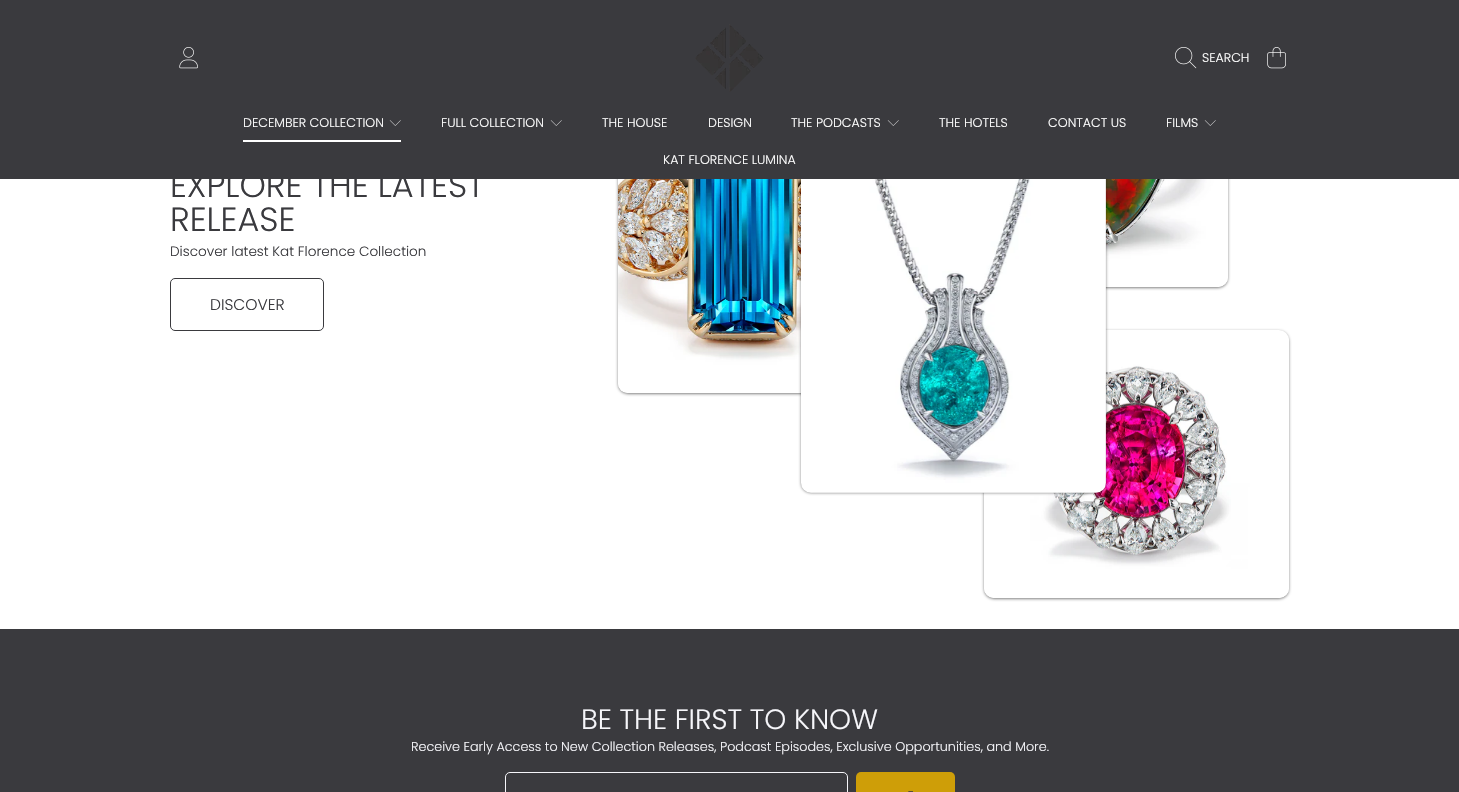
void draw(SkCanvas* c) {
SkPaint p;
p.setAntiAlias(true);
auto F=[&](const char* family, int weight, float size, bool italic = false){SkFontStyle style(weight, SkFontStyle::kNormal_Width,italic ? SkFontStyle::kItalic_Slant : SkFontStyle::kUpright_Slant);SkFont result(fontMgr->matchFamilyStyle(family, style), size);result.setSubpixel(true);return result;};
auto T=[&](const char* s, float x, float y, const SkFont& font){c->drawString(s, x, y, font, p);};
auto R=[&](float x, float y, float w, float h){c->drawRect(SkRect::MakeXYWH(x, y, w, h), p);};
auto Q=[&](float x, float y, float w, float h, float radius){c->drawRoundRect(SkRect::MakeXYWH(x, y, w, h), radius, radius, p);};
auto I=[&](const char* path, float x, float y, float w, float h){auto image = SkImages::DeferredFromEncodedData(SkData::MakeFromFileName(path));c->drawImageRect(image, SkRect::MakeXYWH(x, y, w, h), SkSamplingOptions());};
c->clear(0xffffffff);
p.setColor(0x80000000);
p.setMaskFilter(SkMaskFilter::MakeBlur(kNormal_SkBlurStyle, 1.5));
c->drawRoundRect(SkRect::MakeXYWH(618,58,244,336),10,10,p);
p.setMaskFilter(nullptr);
p.setColor(0xffffffff);
Q(618,57,244,336,10);
p.setColor(0x80000000);
p.setMaskFilter(SkMaskFilter::MakeBlur(kNormal_SkBlurStyle, 1.5));
c->drawRoundRect(SkRect::MakeXYWH(984,-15,244,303),10,10,p);
p.setMaskFilter(nullptr);
p.setColor(0xffffffff);
Q(984,-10,244,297,10);
I("6.png",618,179,183,214);
I("7.png",1105,179,123,108);
p.setColor(0x80000000);
p.setMaskFilter(SkMaskFilter::MakeBlur(kNormal_SkBlurStyle, 1.5));
c->drawRoundRect(SkRect::MakeXYWH(984,331,305,268),10,10,p);
p.setMaskFilter(nullptr);
p.setColor(0xffffffff);
Q(984,330,305,268,10);
I("9.png",984,336,305,262);
p.setColor(0x80000000);
p.setMaskFilter(SkMaskFilter::MakeBlur(kNormal_SkBlurStyle, 1.5));
c->drawRoundRect(SkRect::MakeXYWH(801,91,305,402),10,10,p);
p.setMaskFilter(nullptr);
p.setColor(0xff3a3a3e);
R(0,0,1459,179);
I("1.png",179,47,19,22);
I("2.png",695,24,69,68);
I("3.png",1175,47,22,22);
auto f1 = F("Poppins",300,12.6);
p.setColor(0xffffffff);
T("SEARCH",1202,62,f1);
I("4.png",1267,47,19,22);
T("DECEMBER COLLECTION",243,127,f1);
I("5.png",389,120,12,6);
R(243,140,158,2);
T("FULL COLLECTION",441,127,f1);
I("5.png",550,120,12,6);
T("THE HOUSE",602,127,f1);
T("DESIGN",708,127,f1);
T("THE PODCASTS",791,127,f1);
I("5.png",887,120,12,6);
T("THE HOTELS",939,127,f1);
T("CONTACT US",1048,127,f1);
T("FILMS",1166,127,f1);
I("5.png",1204,120,12,6);
T("KAT FLORENCE LUMINA",663,164,f1);
auto f2 = F("Poppins",300,33.5);
p.setColor(0xff3a3a3e);
T("EXPLORE THE LATEST",170,197,f2);
T("RELEASE",170,231,f2);
auto f3 = F("Poppins",300,13.6);
T("Discover latest Kat Florence Collection",170,256,f3);
p.setStroke(true);
p.setStrokeWidth(1);
c->drawRoundRect(SkRect::MakeXYWH(170.5,278.5,153,52),4.5,4.5,p);
auto f4 = F("Poppins",300,15.5);
p.setStroke(false);
T("DISCOVER",210,310,f4);
I("8.png",801,179,305,314);
R(0,629,1459,163);
auto f5 = F("Poppins",300,28);
p.setColor(0xfff6f6fa);
T("BE THE FIRST TO KNOW",581,729,f5);
auto f6 = F("Poppins",300,12.75);
T("Receive Early Access to New Collection Releases, Podcast Episodes, Exclusive Opportunities, and More.",411,751,f6);
p.setStroke(true);
c->drawRoundRect(SkRect::MakeXYWH(505.5,772.5,342,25),4.5,4.5,p);
p.setStroke(false);
p.setColor(0xffce9e08);
Q(856,772,99,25,5);
auto f7 = F("Poppins",300,12);
p.setColor(0xff3a3a3e);
T("-",908,796,f7);
}
